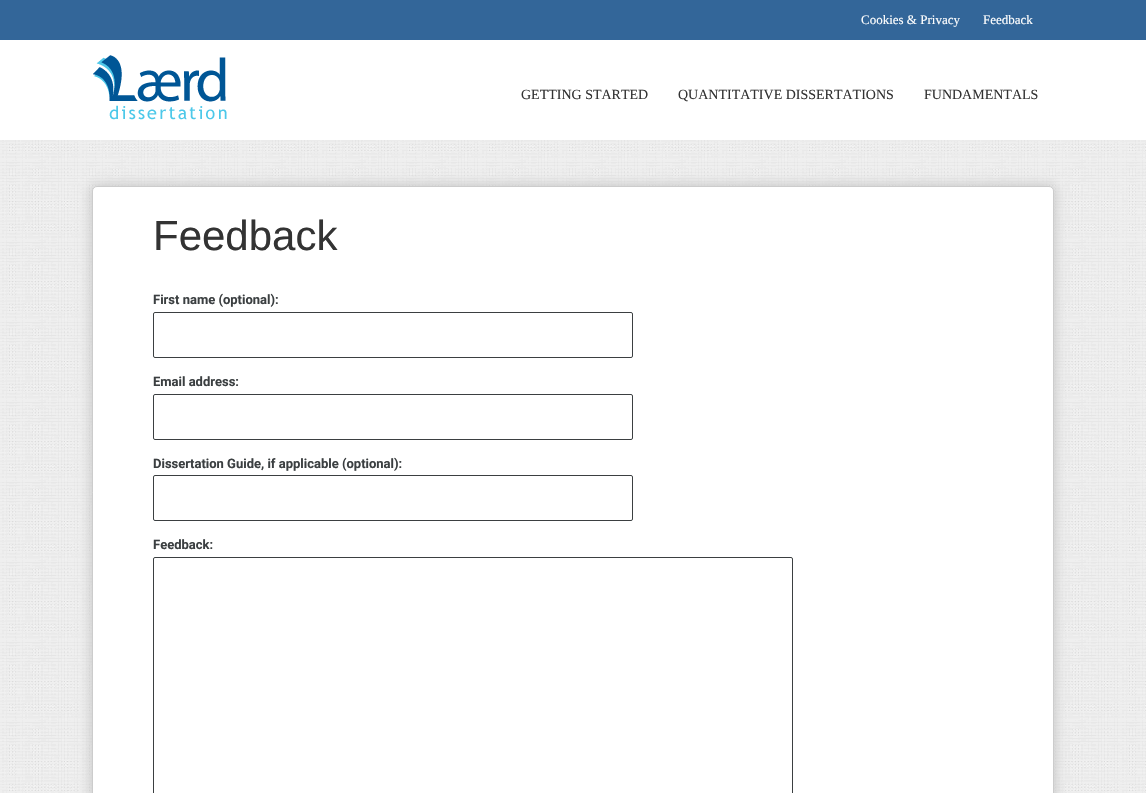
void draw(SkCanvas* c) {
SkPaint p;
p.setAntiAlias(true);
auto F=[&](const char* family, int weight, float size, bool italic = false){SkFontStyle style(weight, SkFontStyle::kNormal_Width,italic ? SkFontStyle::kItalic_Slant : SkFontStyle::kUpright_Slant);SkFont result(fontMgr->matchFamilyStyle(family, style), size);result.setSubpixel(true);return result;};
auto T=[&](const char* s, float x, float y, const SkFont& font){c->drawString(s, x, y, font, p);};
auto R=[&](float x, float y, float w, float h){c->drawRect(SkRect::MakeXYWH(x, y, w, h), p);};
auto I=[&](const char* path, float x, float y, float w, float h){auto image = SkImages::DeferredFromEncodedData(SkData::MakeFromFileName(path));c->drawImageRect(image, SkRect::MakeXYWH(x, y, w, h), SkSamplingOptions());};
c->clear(0xffffffff);
I("1.png",0,140,1146,653);
p.setColor(0xff336699);
R(0,0,1146,40);
auto f1 = F("Liberation Serif",400,13);
p.setColor(0xffffffff);
T("Cookies & Privacy",861,24,f1);
T("Feedback",983,24,f1);
I("2.png",93,55,134,65);
auto f2 = F("Liberation Serif",400,14);
p.setColor(0xff333333);
T("GETTING STARTED",521,99,f2);
T("QUANTITATIVE DISSERTATIONS",678,99,f2);
T("FUNDAMENTALS",924,99,f2);
p.setColor(0xffcccccc);
p.setMaskFilter(SkMaskFilter::MakeBlur(kNormal_SkBlurStyle, 6));
c->drawRoundRect(SkRect::MakeXYWH(90,184,966,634),7,7,p);
p.setMaskFilter(nullptr);
p.setColor(0xffffffff);
c->drawRoundRect(SkRect::MakeXYWH(92.5,186.5,961,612),4.5,4.5,p);
p.setStroke(true);
p.setStrokeWidth(1);
p.setColor(0xffcccccc);
c->drawRoundRect(SkRect::MakeXYWH(92.5,186.5,961,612),4.5,4.5,p);
auto f3 = F("Liberation Sans",400,42);
p.setStroke(false);
p.setColor(0xff333333);
T("Feedback",153,250,f3);
auto f4 = F("Roboto",700,13);
p.setColor(0xff3b3f41);
T("First name (optional):",153,304,f4);
p.setStroke(true);
c->drawRoundRect(SkRect::MakeXYWH(153.5,312.5,479,45),1.5,1.5,p);
p.setStroke(false);
T("Email address:",153,386,f4);
p.setStroke(true);
c->drawRoundRect(SkRect::MakeXYWH(153.5,394.5,479,45),1.5,1.5,p);
p.setStroke(false);
T("Dissertation Guide, if applicable (optional):",153,468,f4);
p.setStroke(true);
c->drawRoundRect(SkRect::MakeXYWH(153.5,475.5,479,45),1.5,1.5,p);
p.setStroke(false);
T("Feedback:",153,549,f4);
p.setStroke(true);
c->drawRoundRect(SkRect::MakeXYWH(153.5,557.5,639,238),1.5,1.5,p);
}
